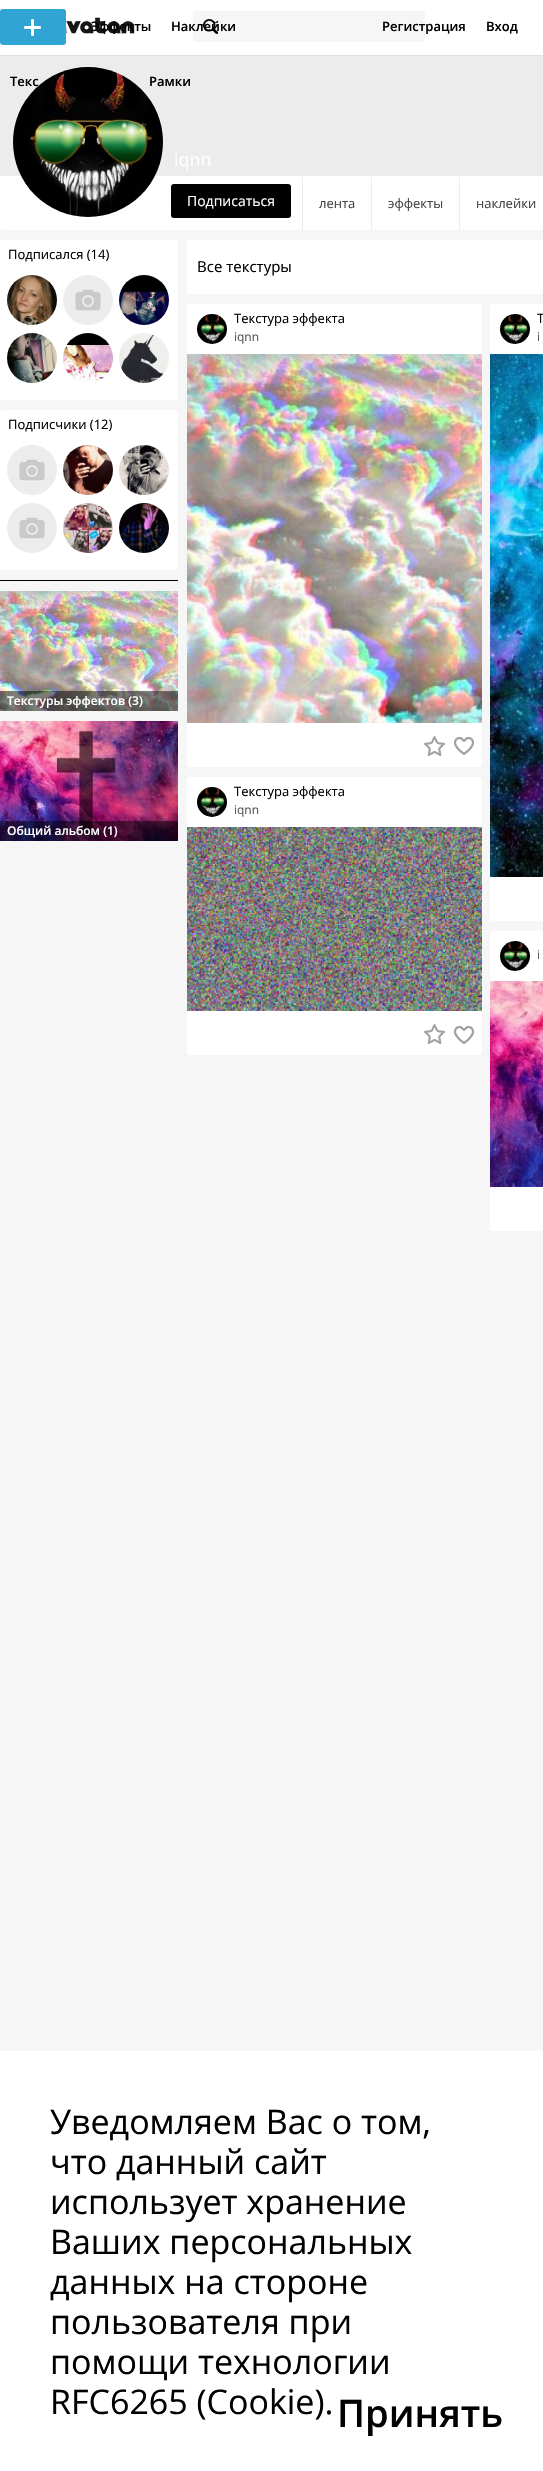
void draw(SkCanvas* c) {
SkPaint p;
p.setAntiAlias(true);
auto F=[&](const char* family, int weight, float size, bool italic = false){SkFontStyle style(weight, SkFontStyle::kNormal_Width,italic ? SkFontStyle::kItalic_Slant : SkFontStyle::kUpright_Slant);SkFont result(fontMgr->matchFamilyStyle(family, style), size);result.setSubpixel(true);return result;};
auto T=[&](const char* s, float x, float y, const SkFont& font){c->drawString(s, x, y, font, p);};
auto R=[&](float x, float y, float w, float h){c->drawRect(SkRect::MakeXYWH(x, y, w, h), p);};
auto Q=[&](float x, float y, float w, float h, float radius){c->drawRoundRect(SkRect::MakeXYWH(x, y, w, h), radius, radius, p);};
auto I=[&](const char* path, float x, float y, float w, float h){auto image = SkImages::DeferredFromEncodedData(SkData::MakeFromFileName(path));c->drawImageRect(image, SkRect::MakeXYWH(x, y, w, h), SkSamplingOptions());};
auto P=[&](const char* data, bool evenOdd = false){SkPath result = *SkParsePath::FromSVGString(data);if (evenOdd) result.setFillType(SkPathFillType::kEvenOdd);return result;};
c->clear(0xfff6f6f6);
p.setColor(0xffececec);
R(0,55,543,121);
p.setColor(0x4d000000);
p.setMaskFilter(SkMaskFilter::MakeBlur(kNormal_SkBlurStyle, .5));
c->drawRect(SkRect::MakeXYWH(0,0,543,55),p);
p.setMaskFilter(nullptr);
p.setColor(0xffffffff);
R(0,0,543,55);
I("1.png",66,13,69,29);
p.setColor(0xfff6f6f6);
Q(193,11,232,31,3);
I("2.png",203,19,15,15);
p.setColor(0xff30a5d4);
Q(0,9,66,36,3);
I("3.png",24,19,17,17);
auto f1 = F("Open Sans",600,13);
p.setColor(0xff000000);
T("Эффекты",91,31,f1);
T("Наклейки",171,31,f1);
p.setColor(0xffffffff);
c->drawPath(P("M0 176h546v51c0 1.5-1.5 3-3 3h-540c-1.5 0-3-1.5-3-3z"),p);
c->drawCircle(88,142,75,p);
I("4.png",13,67,150,150);
p.setColor(0xff000000);
T("Текс",10,86,f1);
T("Рамки",149,86,f1);
T("Регистрация",382,31,f1);
T("Вход",486,31,f1);
auto f2 = F("Open Sans",400,18);
p.setColor(0xffffffff);
T("iqnn",174,166,f2);
p.setColor(0xff000000);
Q(171,184,120,34,3);
auto f3 = F("Open Sans",400,14);
p.setColor(0xffffffff);
T("Подписаться",187,206,f3);
p.setColor(0xffededed);
R(302,177,1,53);
auto f4 = F("Open Sans",400,13);
p.setColor(0xff444444);
T("лента",319,208,f4);
p.setColor(0xffededed);
R(371,177,1,53);
p.setColor(0xff444444);
T("эффекты",388,208,f4);
p.setColor(0xffededed);
R(459,177,1,53);
p.setColor(0xff444444);
T("наклейки",476,208,f4);
p.setColor(0xffffffff);
Q(0,240,178,160,3);
p.setColor(0xff000000);
T("Подписался (14)",8,259,f4);
I("5.png",7,275,50,50);
I("6.png",63,275,50,50);
I("7.png",119,275,50,50);
I("8.png",7,333,50,50);
I("9.png",63,333,50,50);
I("10.png",119,333,50,50);
p.setColor(0xffffffff);
Q(0,410,178,160,3);
p.setColor(0xff000000);
T("Подписчики (12)",8,429,f4);
I("11.png",7,445,50,50);
I("12.png",63,445,50,50);
I("13.png",119,445,50,50);
I("6.png",7,503,50,50);
I("14.png",63,503,50,50);
I("15.png",119,503,50,50);
R(0,580,178,1);
I("16.png",0,591,178,120);
p.setColor(0x80000000);
R(0,691,178,20);
auto f5 = F("Open Sans",600,12);
p.setColor(0xffffffff);
T("Текстуры эффектов (3)",7,705,f5);
I("17.png",0,721,178,120);
p.setColor(0x80000000);
R(0,821,178,20);
p.setColor(0xffffffff);
T("Общий альбом (1)",7,835,f5);
Q(187,240,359,54,3);
auto f6 = F("Open Sans",400,15);
p.setColor(0xff000000);
T("Все текстуры",197,272,f6);
p.setColor(0xffffffff);
Q(187,304,295,463,3);
I("18.png",197,314,30,30);
p.setColor(0xff000000);
T("Текстура эффекта",234,323,f4);
auto f7 = F("Open Sans",400,12);
p.setColor(0xff555555);
T("iqnn",234,341,f7);
I("19.png",187,354,295,369);
I("20.png",424,736,21,20);
I("21.png",454,737,20,18);
p.setColor(0xffffffff);
Q(187,777,295,278,3);
I("18.png",197,787,30,30);
p.setColor(0xff000000);
T("Текстура эффекта",234,796,f4);
p.setColor(0xff555555);
T("iqnn",234,814,f7);
I("22.png",187,827,295,184);
I("20.png",424,1024,21,20);
I("21.png",454,1026,20,18);
p.setColor(0xffffffff);
Q(490,304,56,617,3);
I("23.png",500,314,30,30);
p.setColor(0xff000000);
T("Т",537,323,f4);
p.setColor(0xff555555);
T("i",537,341,f7);
I("24.png",490,354,53,523);
p.setColor(0xffffffff);
Q(490,931,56,300,3);
I("23.png",500,941,30,30);
p.setColor(0xff555555);
T("i",537,959,f7);
I("25.png",490,981,53,206);
p.setColor(0xffffffff);
R(0,2051,543,420);
auto f8 = F("Open Sans",400,34);
p.setColor(0xff000000);
T("Уведомляем Вас о том,",50,2134,f8);
T("что данный сайт",50,2174,f8);
T("использует хранение",50,2214,f8);
T("Ваших персональных",50,2254,f8);
T("данных на стороне",50,2294,f8);
T("пользователя при",50,2334,f8);
T("помощи технологии",50,2374,f8);
T("RFC6265 (Cookie).",50,2414,f8);
auto f9 = F("Open Sans",600,38);
T("Принять",337,2427,f9);
}
